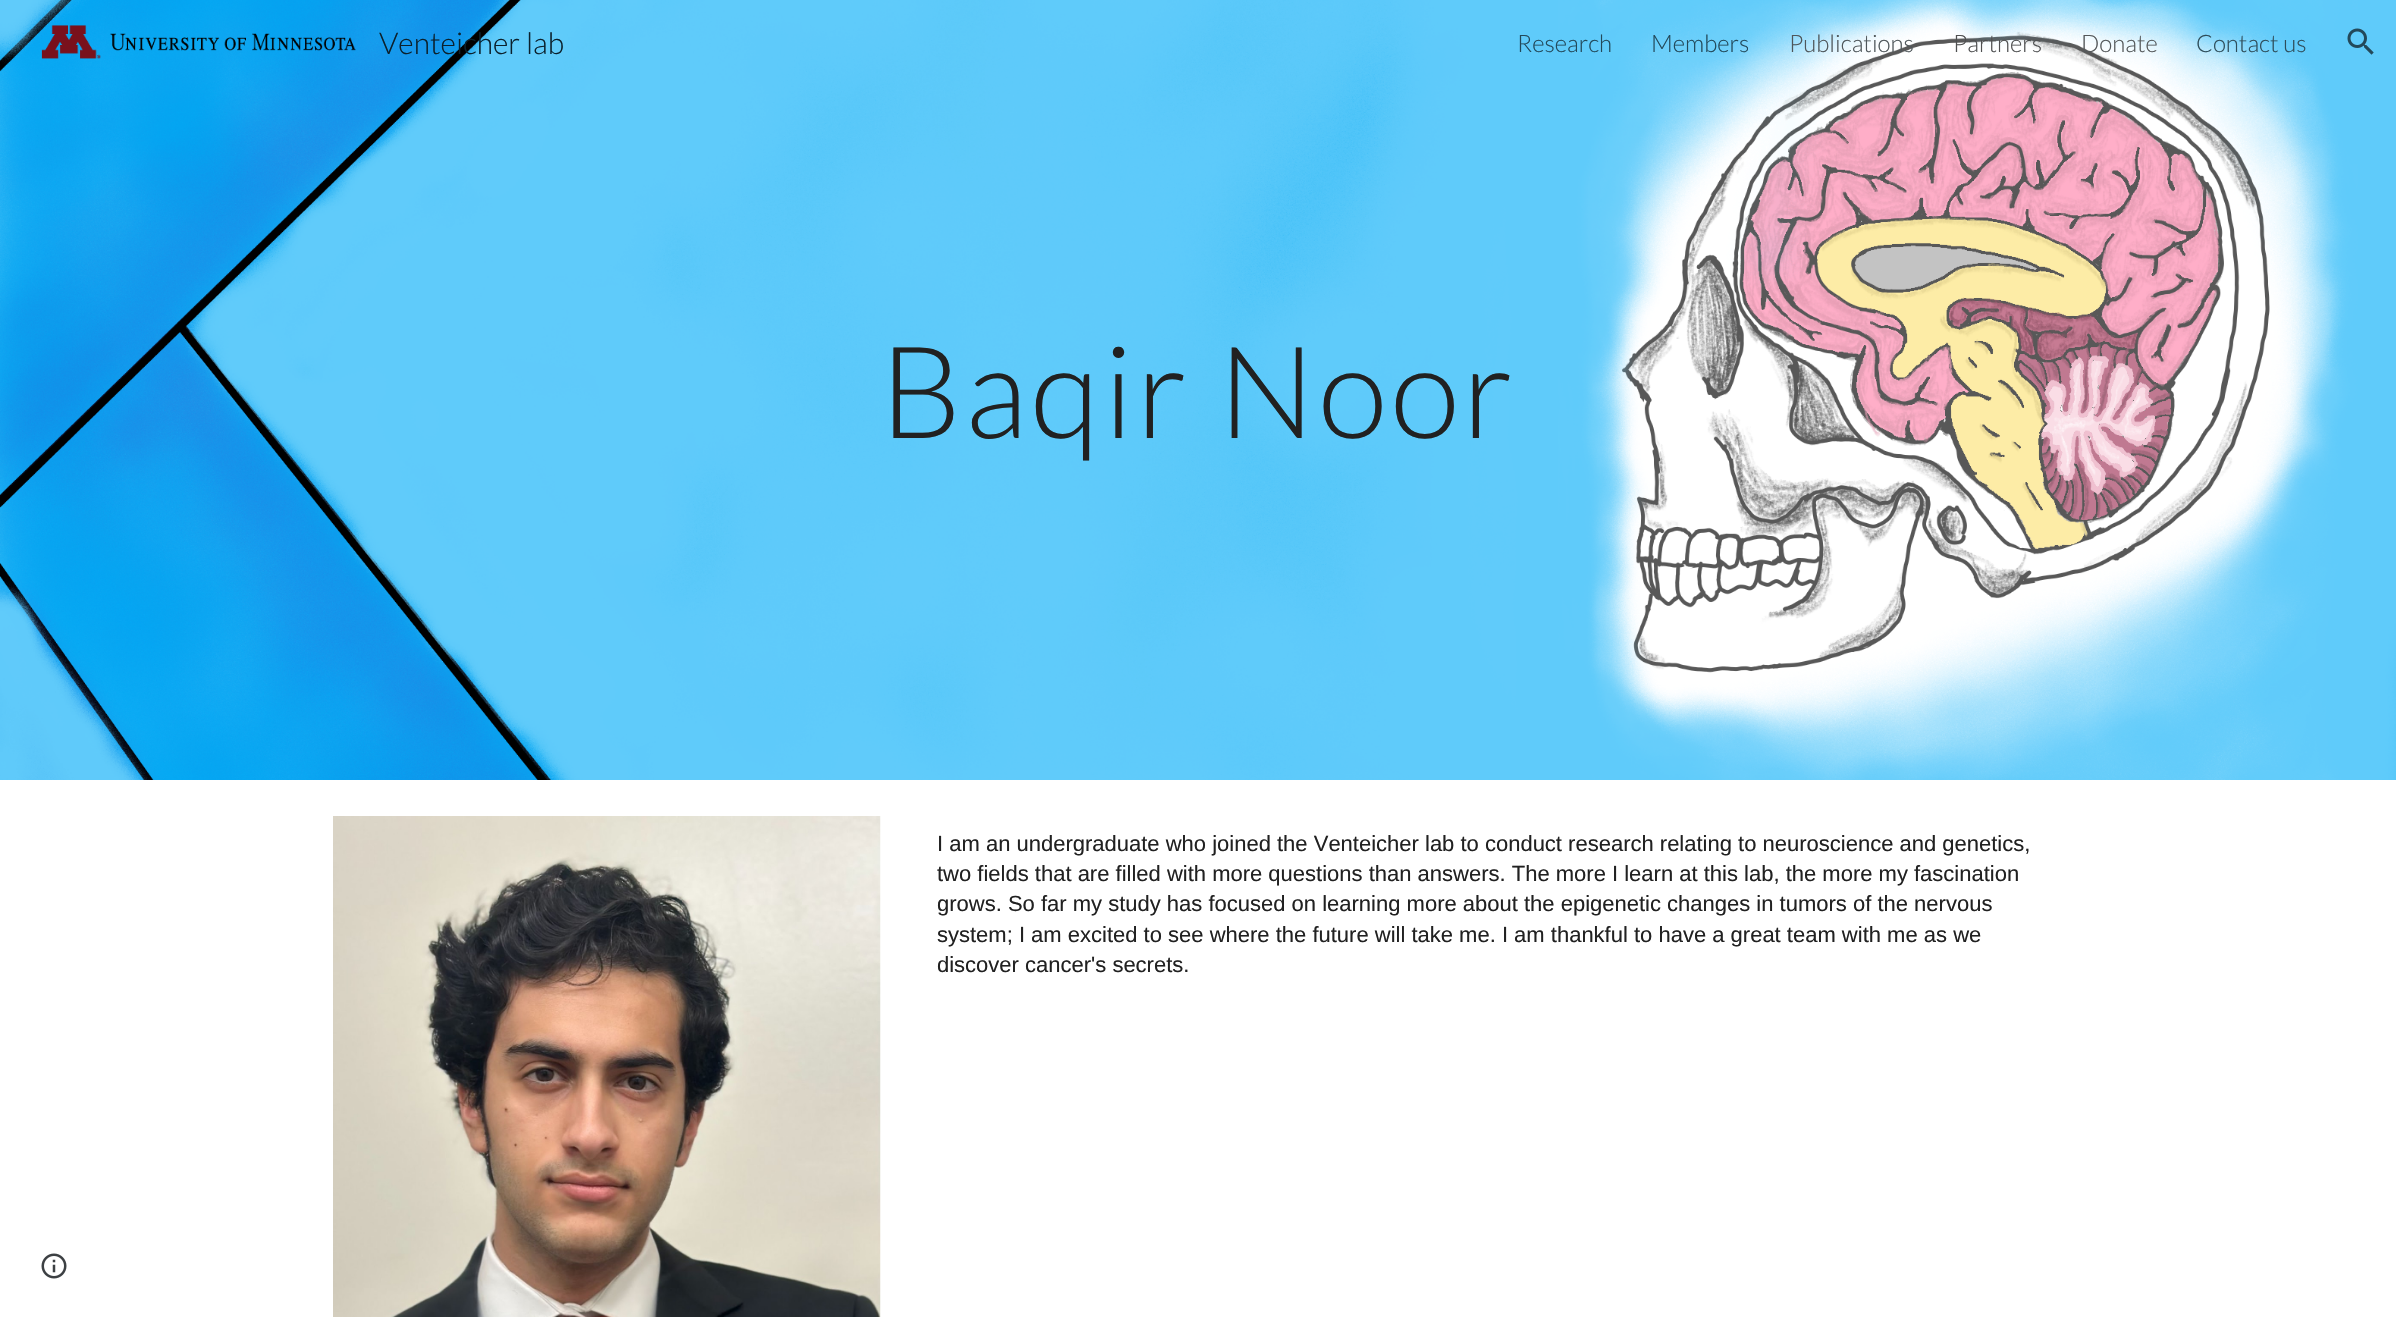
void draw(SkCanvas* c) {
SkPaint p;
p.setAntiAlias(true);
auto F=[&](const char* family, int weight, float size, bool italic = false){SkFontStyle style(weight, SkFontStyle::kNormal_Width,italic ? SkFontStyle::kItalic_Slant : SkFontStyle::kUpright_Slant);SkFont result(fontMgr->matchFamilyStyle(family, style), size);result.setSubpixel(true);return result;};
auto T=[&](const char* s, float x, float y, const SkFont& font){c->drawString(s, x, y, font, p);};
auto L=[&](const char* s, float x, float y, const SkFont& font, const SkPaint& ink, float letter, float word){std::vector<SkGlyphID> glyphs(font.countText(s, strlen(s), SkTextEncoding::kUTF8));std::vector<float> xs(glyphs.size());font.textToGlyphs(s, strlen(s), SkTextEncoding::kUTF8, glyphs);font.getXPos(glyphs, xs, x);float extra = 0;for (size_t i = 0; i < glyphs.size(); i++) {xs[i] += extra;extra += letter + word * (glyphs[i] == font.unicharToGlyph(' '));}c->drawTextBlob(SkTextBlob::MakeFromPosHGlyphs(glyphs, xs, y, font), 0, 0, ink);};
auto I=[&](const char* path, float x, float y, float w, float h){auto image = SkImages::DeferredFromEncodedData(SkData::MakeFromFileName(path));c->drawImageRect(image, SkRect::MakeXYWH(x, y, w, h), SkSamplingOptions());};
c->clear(0xffffffff);
I("3.png",0,0,2396,780);
I("1.png",41,25,315,34);
auto f1 = F("Lato",300,30);
p.setColor(0xff0b212d);
T("Venteicher lab",379,54,f1);
auto f2 = F("Lato",300,24);
p.setColor(0xff22495a);
T("Research",1517,52,f2);
T("Members",1651,52,f2);
p.setColor(0xff4e565a);
T("Publications",1789,52,f2);
p.setColor(0xff4f5051);
T("Partners",1953,52,f2);
p.setColor(0xff54585a);
T("Donate",2081,52,f2);
p.setColor(0xff2e4d5a);
T("Contact us",2196,52,f2);
I("2.png",2347,28,27,27);
auto f3 = F("Lato",300,128);
p.setColor(0xff212121);
L("Baqir Noor",880,438,f3,p,3,0);
I("4.png",333,816,548,501);
auto f4 = F("Liberation Sans",400,22);
T("I am an undergraduate who joined the Venteicher lab to conduct research relating to neuroscience and genetics,",937,851,f4);
T("two fields that are filled with more questions than answers. The more I learn at this lab, the more my fascination",937,881,f4);
T("grows. So far my study has focused on learning more about the epigenetic changes in tumors of the nervous",937,911,f4);
T("system; I am excited to see where the future will take me. I am thankful to have a great team with me as we",937,942,f4);
T("discover cancer's secrets.",937,972,f4);
I("5.png",41,1253,26,26);
}
